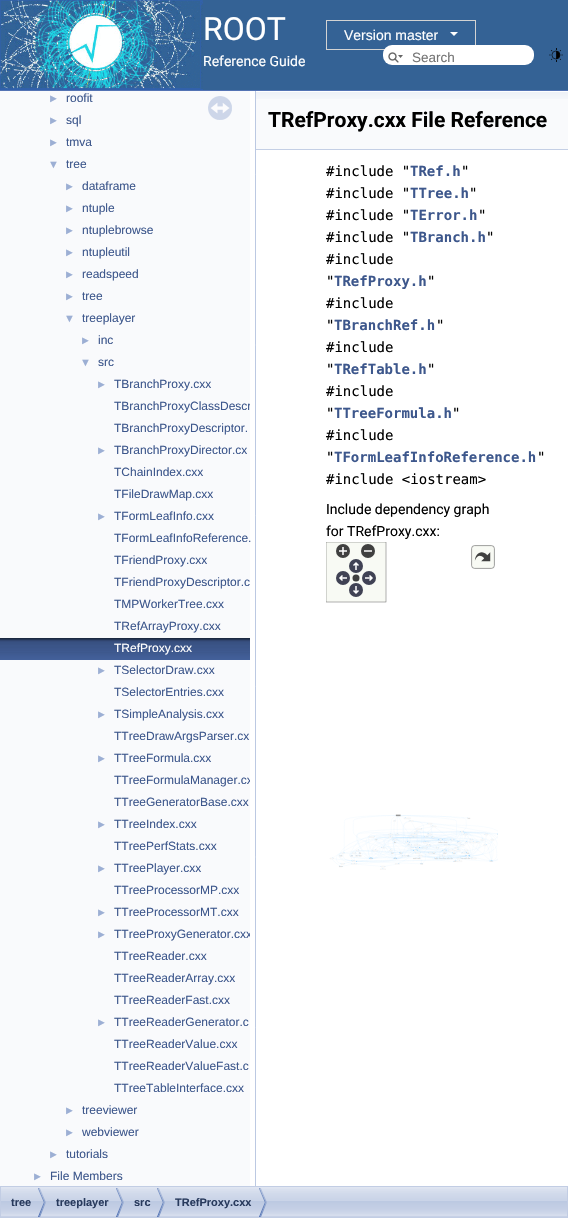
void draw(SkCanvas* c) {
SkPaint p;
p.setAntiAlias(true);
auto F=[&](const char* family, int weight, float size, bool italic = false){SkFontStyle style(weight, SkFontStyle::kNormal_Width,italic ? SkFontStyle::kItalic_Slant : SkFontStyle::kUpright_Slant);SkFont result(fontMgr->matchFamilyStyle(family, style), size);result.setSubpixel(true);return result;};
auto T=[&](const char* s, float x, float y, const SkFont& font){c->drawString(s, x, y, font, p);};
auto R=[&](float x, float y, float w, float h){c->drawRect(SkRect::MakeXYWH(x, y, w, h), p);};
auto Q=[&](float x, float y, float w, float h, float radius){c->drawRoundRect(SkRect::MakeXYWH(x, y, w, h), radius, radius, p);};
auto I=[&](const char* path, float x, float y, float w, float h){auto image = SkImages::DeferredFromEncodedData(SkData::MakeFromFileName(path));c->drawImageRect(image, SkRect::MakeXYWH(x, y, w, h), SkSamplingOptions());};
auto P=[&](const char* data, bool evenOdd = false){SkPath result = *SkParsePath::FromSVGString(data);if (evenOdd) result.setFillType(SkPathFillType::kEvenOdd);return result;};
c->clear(0xffffffff);
p.setColor(0xff5373b4);
R(0,90,568,1);
p.setColor(0xff346295);
R(203,0,365,90);
I("1.png",0,0,203,90);
auto f1 = F("Roboto",400,32);
p.setColor(0xffffffff);
T("ROOT",203,40,f1);
p.setStroke(true);
p.setStrokeWidth(1);
p.setColor(0xffd3d3d3);
c->drawRect(SkRect::MakeXYWH(326.5,20.5,149,29),p);
auto f2 = F("Liberation Sans",400,14);
p.setStroke(false);
p.setColor(0xffffffff);
T("Version master",344,40,f2);
c->drawPath(P("M450 32h8l-4 4z"),p);
auto f3 = F("Roboto",400,14);
T("Reference Guide",203,66,f3);
Q(383,45,151,20,9);
I("2.png",388,52,15,11);
auto f4 = F("Liberation Sans",400,13.5);
p.setColor(0xff757575);
T("Search",412,62,f4);
I("3.png",549,48,14,14);
p.setColor(0xfff9fafc);
R(0,91,250,1095);
auto f5 = F("Liberation Sans",400,11);
p.setColor(0xff9cafd4);
T("►",48,102,f5);
auto f6 = F("Liberation Sans",400,12);
p.setColor(0xff3d578c);
T("roofit",66,102,f6);
p.setColor(0xff9cafd4);
T("►",48,124,f5);
p.setColor(0xff3d578c);
T("sql",66,124,f6);
p.setColor(0xff9cafd4);
T("►",48,146,f5);
p.setColor(0xff3d578c);
T("tmva",66,146,f6);
p.setColor(0xff9cafd4);
T("▼",48,168,f5);
p.setColor(0xff3d578c);
T("tree",66,168,f6);
p.setColor(0xff9cafd4);
T("►",64,190,f5);
p.setColor(0xff3d578c);
T("dataframe",82,190,f6);
p.setColor(0xff9cafd4);
T("►",64,212,f5);
p.setColor(0xff3d578c);
T("ntuple",82,212,f6);
p.setColor(0xff9cafd4);
T("►",64,234,f5);
p.setColor(0xff3d578c);
T("ntuplebrowse",82,234,f6);
p.setColor(0xff9cafd4);
T("►",64,256,f5);
p.setColor(0xff3d578c);
T("ntupleutil",82,256,f6);
p.setColor(0xff9cafd4);
T("►",64,278,f5);
p.setColor(0xff3d578c);
T("readspeed",82,278,f6);
p.setColor(0xff9cafd4);
T("►",64,300,f5);
p.setColor(0xff3d578c);
T("tree",82,300,f6);
p.setColor(0xff9cafd4);
T("▼",64,322,f5);
p.setColor(0xff3d578c);
T("treeplayer",82,322,f6);
p.setColor(0xff9cafd4);
T("►",80,344,f5);
p.setColor(0xff3d578c);
T("inc",98,344,f6);
p.setColor(0xff9cafd4);
T("▼",80,366,f5);
p.setColor(0xff3d578c);
T("src",98,366,f6);
p.setColor(0xff9cafd4);
T("►",96,388,f5);
p.setColor(0xff3d578c);
T("TBranchProxy.cxx",114,388,f6);
c->save();
c->clipRect(SkRect::MakeXYWH(0,91,250,1095));
T("TBranchProxyClassDescr",114,410,f6);
c->restore();
T("TBranchProxyDescriptor.",114,432,f6);
p.setColor(0xff9cafd4);
T("►",96,454,f5);
p.setColor(0xff3d578c);
T("TBranchProxyDirector.cx",114,454,f6);
T("TChainIndex.cxx",114,476,f6);
T("TFileDrawMap.cxx",114,498,f6);
p.setColor(0xff9cafd4);
T("►",96,520,f5);
p.setColor(0xff3d578c);
T("TFormLeafInfo.cxx",114,520,f6);
T("TFormLeafInfoReference.",114,542,f6);
T("TFriendProxy.cxx",114,564,f6);
T("TFriendProxyDescriptor.c",114,586,f6);
T("TMPWorkerTree.cxx",114,608,f6);
T("TRefArrayProxy.cxx",114,630,f6);
I("4.png",0,638,250,22);
p.setColor(0xffffffff);
T("TRefProxy.cxx",114,652,f6);
p.setColor(0xff9cafd4);
T("►",96,674,f5);
p.setColor(0xff3d578c);
T("TSelectorDraw.cxx",114,674,f6);
T("TSelectorEntries.cxx",114,696,f6);
p.setColor(0xff9cafd4);
T("►",96,718,f5);
p.setColor(0xff3d578c);
T("TSimpleAnalysis.cxx",114,718,f6);
T("TTreeDrawArgsParser.cx",114,740,f6);
p.setColor(0xff9cafd4);
T("►",96,762,f5);
p.setColor(0xff3d578c);
T("TTreeFormula.cxx",114,762,f6);
c->save();
c->clipRect(SkRect::MakeXYWH(0,91,250,1095));
T("TTreeFormulaManager.cx",114,784,f6);
c->restore();
T("TTreeGeneratorBase.cxx",114,806,f6);
p.setColor(0xff9cafd4);
T("►",96,828,f5);
p.setColor(0xff3d578c);
T("TTreeIndex.cxx",114,828,f6);
T("TTreePerfStats.cxx",114,850,f6);
p.setColor(0xff9cafd4);
T("►",96,872,f5);
p.setColor(0xff3d578c);
T("TTreePlayer.cxx",114,872,f6);
T("TTreeProcessorMP.cxx",114,894,f6);
p.setColor(0xff9cafd4);
T("►",96,916,f5);
p.setColor(0xff3d578c);
T("TTreeProcessorMT.cxx",114,916,f6);
p.setColor(0xff9cafd4);
T("►",96,938,f5);
c->save();
c->clipRect(SkRect::MakeXYWH(0,91,250,1095));
p.setColor(0xff3d578c);
T("TTreeProxyGenerator.cxx",114,938,f6);
c->restore();
T("TTreeReader.cxx",114,960,f6);
T("TTreeReaderArray.cxx",114,982,f6);
T("TTreeReaderFast.cxx",114,1004,f6);
p.setColor(0xff9cafd4);
T("►",96,1026,f5);
p.setColor(0xff3d578c);
T("TTreeReaderGenerator.c",114,1026,f6);
T("TTreeReaderValue.cxx",114,1048,f6);
T("TTreeReaderValueFast.c",114,1070,f6);
T("TTreeTableInterface.cxx",114,1092,f6);
p.setColor(0xff9cafd4);
T("►",64,1114,f5);
p.setColor(0xff3d578c);
T("treeviewer",82,1114,f6);
p.setColor(0xff9cafd4);
T("►",64,1136,f5);
p.setColor(0xff3d578c);
T("webviewer",82,1136,f6);
p.setColor(0xff9cafd4);
T("►",48,1158,f5);
p.setColor(0xff3d578c);
T("tutorials",66,1158,f6);
p.setColor(0xff9cafd4);
T("►",32,1180,f5);
p.setColor(0xff3d578c);
T("File Members",50,1180,f6);
I("5.png",208,96,24,24);
I("6.png",255,91,1,1095);
p.setColor(0xfff9fafc);
R(256,99,312,50);
I("7.png",256,91,312,8);
p.setColor(0xffc4cfe5);
R(256,149,312,1);
auto f7 = F("Roboto",700,21);
p.setColor(0xff000000);
T("TRefProxy.cxx File Reference",268,127,f7);
auto f8 = F("DejaVu Sans Mono",400,14);
T("#include \"",326,176,f8);
auto f9 = F("DejaVu Sans Mono",700,14);
p.setColor(0xff3d578c);
T("TRef.h",410,176,f9);
p.setColor(0xff000000);
T("\"",461,176,f8);
T("#include \"",326,198,f8);
p.setColor(0xff3d578c);
T("TTree.h",410,198,f9);
p.setColor(0xff000000);
T("\"",469,198,f8);
T("#include \"",326,220,f8);
p.setColor(0xff3d578c);
T("TError.h",410,220,f9);
p.setColor(0xff000000);
T("\"",478,220,f8);
T("#include \"",326,242,f8);
p.setColor(0xff3d578c);
T("TBranch.h",410,242,f9);
p.setColor(0xff000000);
T("\"",486,242,f8);
T("#include",326,264,f8);
T("\"",326,286,f8);
p.setColor(0xff3d578c);
T("TRefProxy.h",334,286,f9);
p.setColor(0xff000000);
T("\"",427,286,f8);
T("#include",326,308,f8);
T("\"",326,330,f8);
p.setColor(0xff3d578c);
T("TBranchRef.h",334,330,f9);
p.setColor(0xff000000);
T("\"",436,330,f8);
T("#include",326,352,f8);
T("\"",326,374,f8);
p.setColor(0xff3d578c);
T("TRefTable.h",334,374,f9);
p.setColor(0xff000000);
T("\"",427,374,f8);
T("#include",326,396,f8);
T("\"",326,418,f8);
p.setColor(0xff3d578c);
T("TTreeFormula.h",334,418,f9);
p.setColor(0xff000000);
T("\"",452,418,f8);
T("#include",326,440,f8);
T("\"",326,462,f8);
p.setColor(0xff3d578c);
T("TFormLeafInfoReference.h",334,462,f9);
p.setColor(0xff000000);
T("\"",537,462,f8);
T("#include <iostream>",326,484,f8);
T("Include dependency graph",326,514,f3);
T("for TRefProxy.cxx:",326,536,f3);
I("8.png",326,542,172,328);
I("9.png",1,1187,566,30);
p.setStroke(true);
p.setColor(0xffc2cde4);
c->drawRect(SkRect::MakeXYWH(.5,1186.5,567,31),p);
I("10.png",38,1188,8,29);
auto f10 = F("Liberation Sans",700,11);
p.setStroke(false);
p.setColor(0xff283a5d);
T("tree",11,1206,f10);
I("10.png",116,1188,8,29);
T("treeplayer",56,1206,f10);
I("10.png",157,1188,8,29);
T("src",134,1206,f10);
I("10.png",259,1188,8,29);
T("TRefProxy.cxx",175,1206,f10);
}
